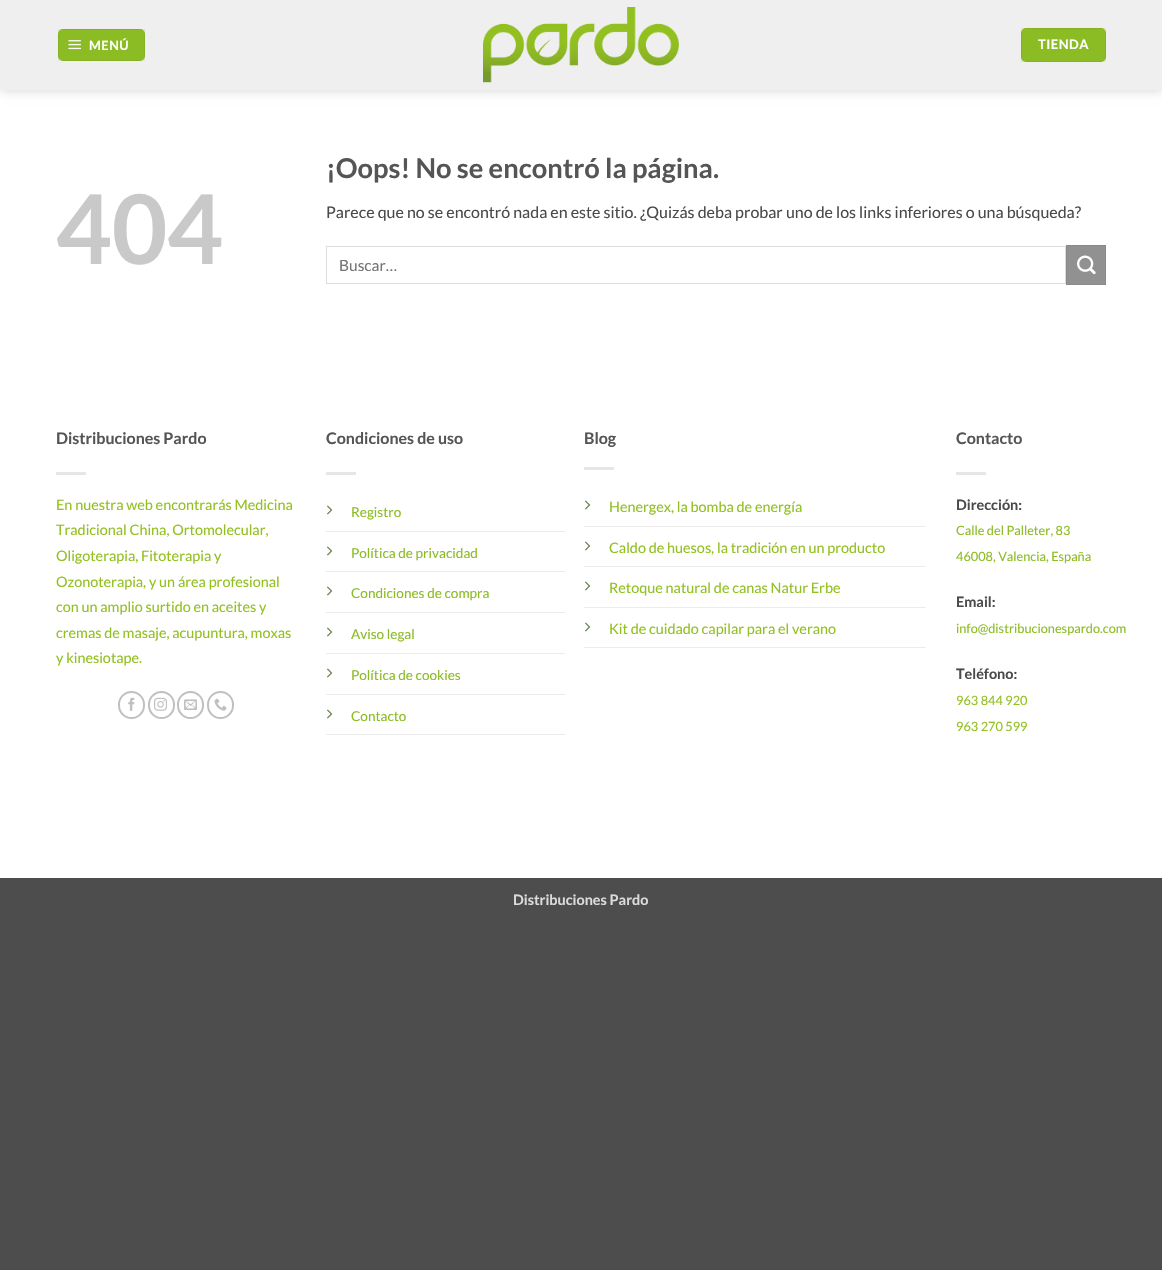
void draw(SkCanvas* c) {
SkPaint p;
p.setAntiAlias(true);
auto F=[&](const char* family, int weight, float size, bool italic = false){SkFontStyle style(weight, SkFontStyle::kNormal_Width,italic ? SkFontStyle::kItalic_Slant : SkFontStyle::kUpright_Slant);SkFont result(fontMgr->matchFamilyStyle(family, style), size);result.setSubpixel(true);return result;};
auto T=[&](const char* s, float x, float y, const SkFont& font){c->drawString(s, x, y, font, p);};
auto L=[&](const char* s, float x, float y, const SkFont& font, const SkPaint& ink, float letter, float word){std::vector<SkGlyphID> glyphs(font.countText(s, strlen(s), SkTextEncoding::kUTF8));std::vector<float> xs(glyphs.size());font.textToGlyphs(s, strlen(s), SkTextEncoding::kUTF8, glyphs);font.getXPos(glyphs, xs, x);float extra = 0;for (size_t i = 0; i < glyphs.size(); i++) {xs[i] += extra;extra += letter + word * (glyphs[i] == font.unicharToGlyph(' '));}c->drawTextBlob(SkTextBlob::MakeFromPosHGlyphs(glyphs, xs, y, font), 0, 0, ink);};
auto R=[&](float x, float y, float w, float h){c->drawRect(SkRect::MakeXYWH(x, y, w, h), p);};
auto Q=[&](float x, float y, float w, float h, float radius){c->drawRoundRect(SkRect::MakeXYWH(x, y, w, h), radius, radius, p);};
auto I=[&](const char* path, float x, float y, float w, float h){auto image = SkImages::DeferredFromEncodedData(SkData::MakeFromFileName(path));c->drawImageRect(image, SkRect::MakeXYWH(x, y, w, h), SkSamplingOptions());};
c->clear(0xff4d4d4d);
p.setColor(0xffffffff);
R(0,90,1162,788);
p.setColor(0x26000000);
p.setMaskFilter(SkMaskFilter::MakeBlur(kNormal_SkBlurStyle, 5));
c->drawRect(SkRect::MakeXYWH(1,1,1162,90),p);
p.setMaskFilter(nullptr);
p.setColor(0xffefefef);
R(0,0,1162,90);
p.setColor(0xff8cbc24);
Q(58,29,87,32,5);
p.setStroke(true);
p.setStrokeWidth(1);
p.setColor(0x0d000000);
c->drawRect(SkRect::MakeXYWH(58.5,29.5,86,31),p);
I("1.png",68,40,13,10);
auto f1 = F("Lato",700,12.75);
p.setStroke(false);
p.setColor(0xffffffff);
L("MENÚ",89,50,f1,p,.5,0);
I("2.png",483,7,196,76);
p.setColor(0xff8cbc24);
Q(1021,28,85,34,5);
p.setStroke(true);
p.setColor(0x0d000000);
c->drawRect(SkRect::MakeXYWH(1021.5,28.5,84,33),p);
auto f2 = F("Lato",700,13);
p.setStroke(false);
p.setColor(0xffffffff);
L("TIENDA",1038,49,f2,p,.5,0);
auto f3 = F("Lato",700,96);
p.setColor(0xffc9c9c9);
T("404",56,264,f3);
auto f4 = F("Lato",700,27.25);
p.setColor(0xff555555);
T("¡Oops! No se encontró la página.",326,178,f4);
auto f5 = F("Lato",400,16);
p.setColor(0xff4a4a4a);
T("Parece que no se encontró nada en este sitio. ¿Quizás deba probar uno de los links inferiores o una búsqueda?",326,218,f5);
p.setStroke(true);
p.setColor(0xffdddddd);
c->drawRect(SkRect::MakeXYWH(326.5,246.5,739,37),p);
auto f6 = F("Lato",400,15.5);
p.setStroke(false);
p.setColor(0xff757575);
T("Buscar…",339,271,f6);
p.setColor(0xff919191);
c->drawRect(SkRect::MakeXYWH(1066.5,245.5,39,39),p);
p.setStroke(true);
p.setColor(0xff8a8a8a);
c->drawRect(SkRect::MakeXYWH(1066.5,245.5,39,39),p);
I("3.png",1077,255,19,20);
auto f7 = F("Lato",700,16);
p.setStroke(false);
p.setColor(0xff555555);
T("Distribuciones Pardo",56,444,f7);
p.setColor(0xffe6e6e6);
R(56,472,30,3);
auto f8 = F("Lato",400,14.4);
p.setColor(0xff92c020);
T("En nuestra web encontrarás Medicina",56,510,f8);
T("Tradicional China, Ortomolecular,",56,535,f8);
T("Oligoterapia, Fitoterapia y",56,561,f8);
T("Ozonoterapia, y un área profesional",56,587,f8);
T("con un amplio surtido en aceites y",56,612,f8);
T("cremas de masaje, acupuntura, moxas",56,638,f8);
T("y kinesiotape.",56,663,f8);
p.setStroke(true);
p.setStrokeWidth(2);
p.setColor(0xffc0c0c0);
c->drawRoundRect(SkRect::MakeXYWH(119,692,25,26),12.5,12.5,p);
I("4.png",128,697,7,14);
c->drawRoundRect(SkRect::MakeXYWH(149,692,25,26),12.5,12.5,p);
I("5.png",154,697,13,14);
c->drawRoundRect(SkRect::MakeXYWH(178,692,25,26),12.5,12.5,p);
I("6.png",184,699,13,11);
c->drawRoundRect(SkRect::MakeXYWH(208,692,25,26),12.5,12.5,p);
I("7.png",214,698,13,13);
p.setStroke(false);
p.setColor(0xff555555);
T("Condiciones de uso",326,444,f7);
p.setColor(0xffe6e6e6);
R(326,472,30,3);
p.setColor(0xffececec);
R(326,531,239,1);
I("8.png",327,505,6,10);
auto f9 = F("Lato",400,13.6);
p.setColor(0xff8cbc24);
T("Registro",351,517,f9);
p.setColor(0xffececec);
R(326,571,239,1);
I("8.png",327,546,6,10);
p.setColor(0xff8cbc24);
T("Política de privacidad",351,558,f9);
p.setColor(0xffececec);
R(326,612,239,1);
I("8.png",327,586,6,10);
p.setColor(0xff8cbc24);
T("Condiciones de compra",351,598,f9);
p.setColor(0xffececec);
R(326,653,239,1);
I("8.png",327,627,6,10);
p.setColor(0xff8cbc24);
T("Aviso legal",351,639,f9);
p.setColor(0xffececec);
R(326,694,239,1);
I("8.png",327,668,6,10);
p.setColor(0xff8cbc24);
T("Política de cookies",351,680,f9);
p.setColor(0xffececec);
R(326,734,239,1);
I("8.png",327,709,6,10);
p.setColor(0xff8cbc24);
T("Contacto",351,721,f9);
p.setColor(0xff555555);
T("Blog",584,444,f7);
p.setColor(0xffe6e6e6);
R(584,467,30,3);
p.setColor(0xffececec);
R(584,526,342,1);
I("8.png",585,500,6,10);
p.setColor(0xff92c020);
T("Henergex, la bomba de energía",609,512,f8);
p.setColor(0xffececec);
R(584,566,342,1);
I("8.png",585,541,6,10);
p.setColor(0xff92c020);
T("Caldo de huesos, la tradición en un producto",609,553,f8);
p.setColor(0xffececec);
R(584,607,342,1);
I("8.png",585,581,6,10);
p.setColor(0xff92c020);
T("Retoque natural de canas Natur Erbe",609,593,f8);
p.setColor(0xffececec);
R(584,647,342,1);
I("8.png",585,622,6,10);
p.setColor(0xff92c020);
T("Kit de cuidado capilar para el verano",609,634,f8);
p.setColor(0xff555555);
T("Contacto",956,444,f7);
p.setColor(0xffe6e6e6);
R(956,472,30,3);
auto f10 = F("Lato",700,14.4);
p.setColor(0xff4a4a4a);
T("Dirección:",956,510,f10);
auto f11 = F("Lato",400,12.75);
p.setColor(0xff8cbc24);
T("Calle del Palleter, 83",956,535,f11);
T("46008, Valencia, España",956,561,f11);
p.setColor(0xff4a4a4a);
T("Email:",956,607,f10);
p.setColor(0xff8cbc24);
T("info@distribucionespardo.com",956,633,f11);
p.setColor(0xff4a4a4a);
T("Teléfono:",956,679,f10);
p.setColor(0xff92c020);
T("963 844 920",956,705,f11);
T("963 270 599",956,731,f11);
p.setColor(0xffdbdbdb);
T("Distribuciones Pardo",513,905,f10);
}
